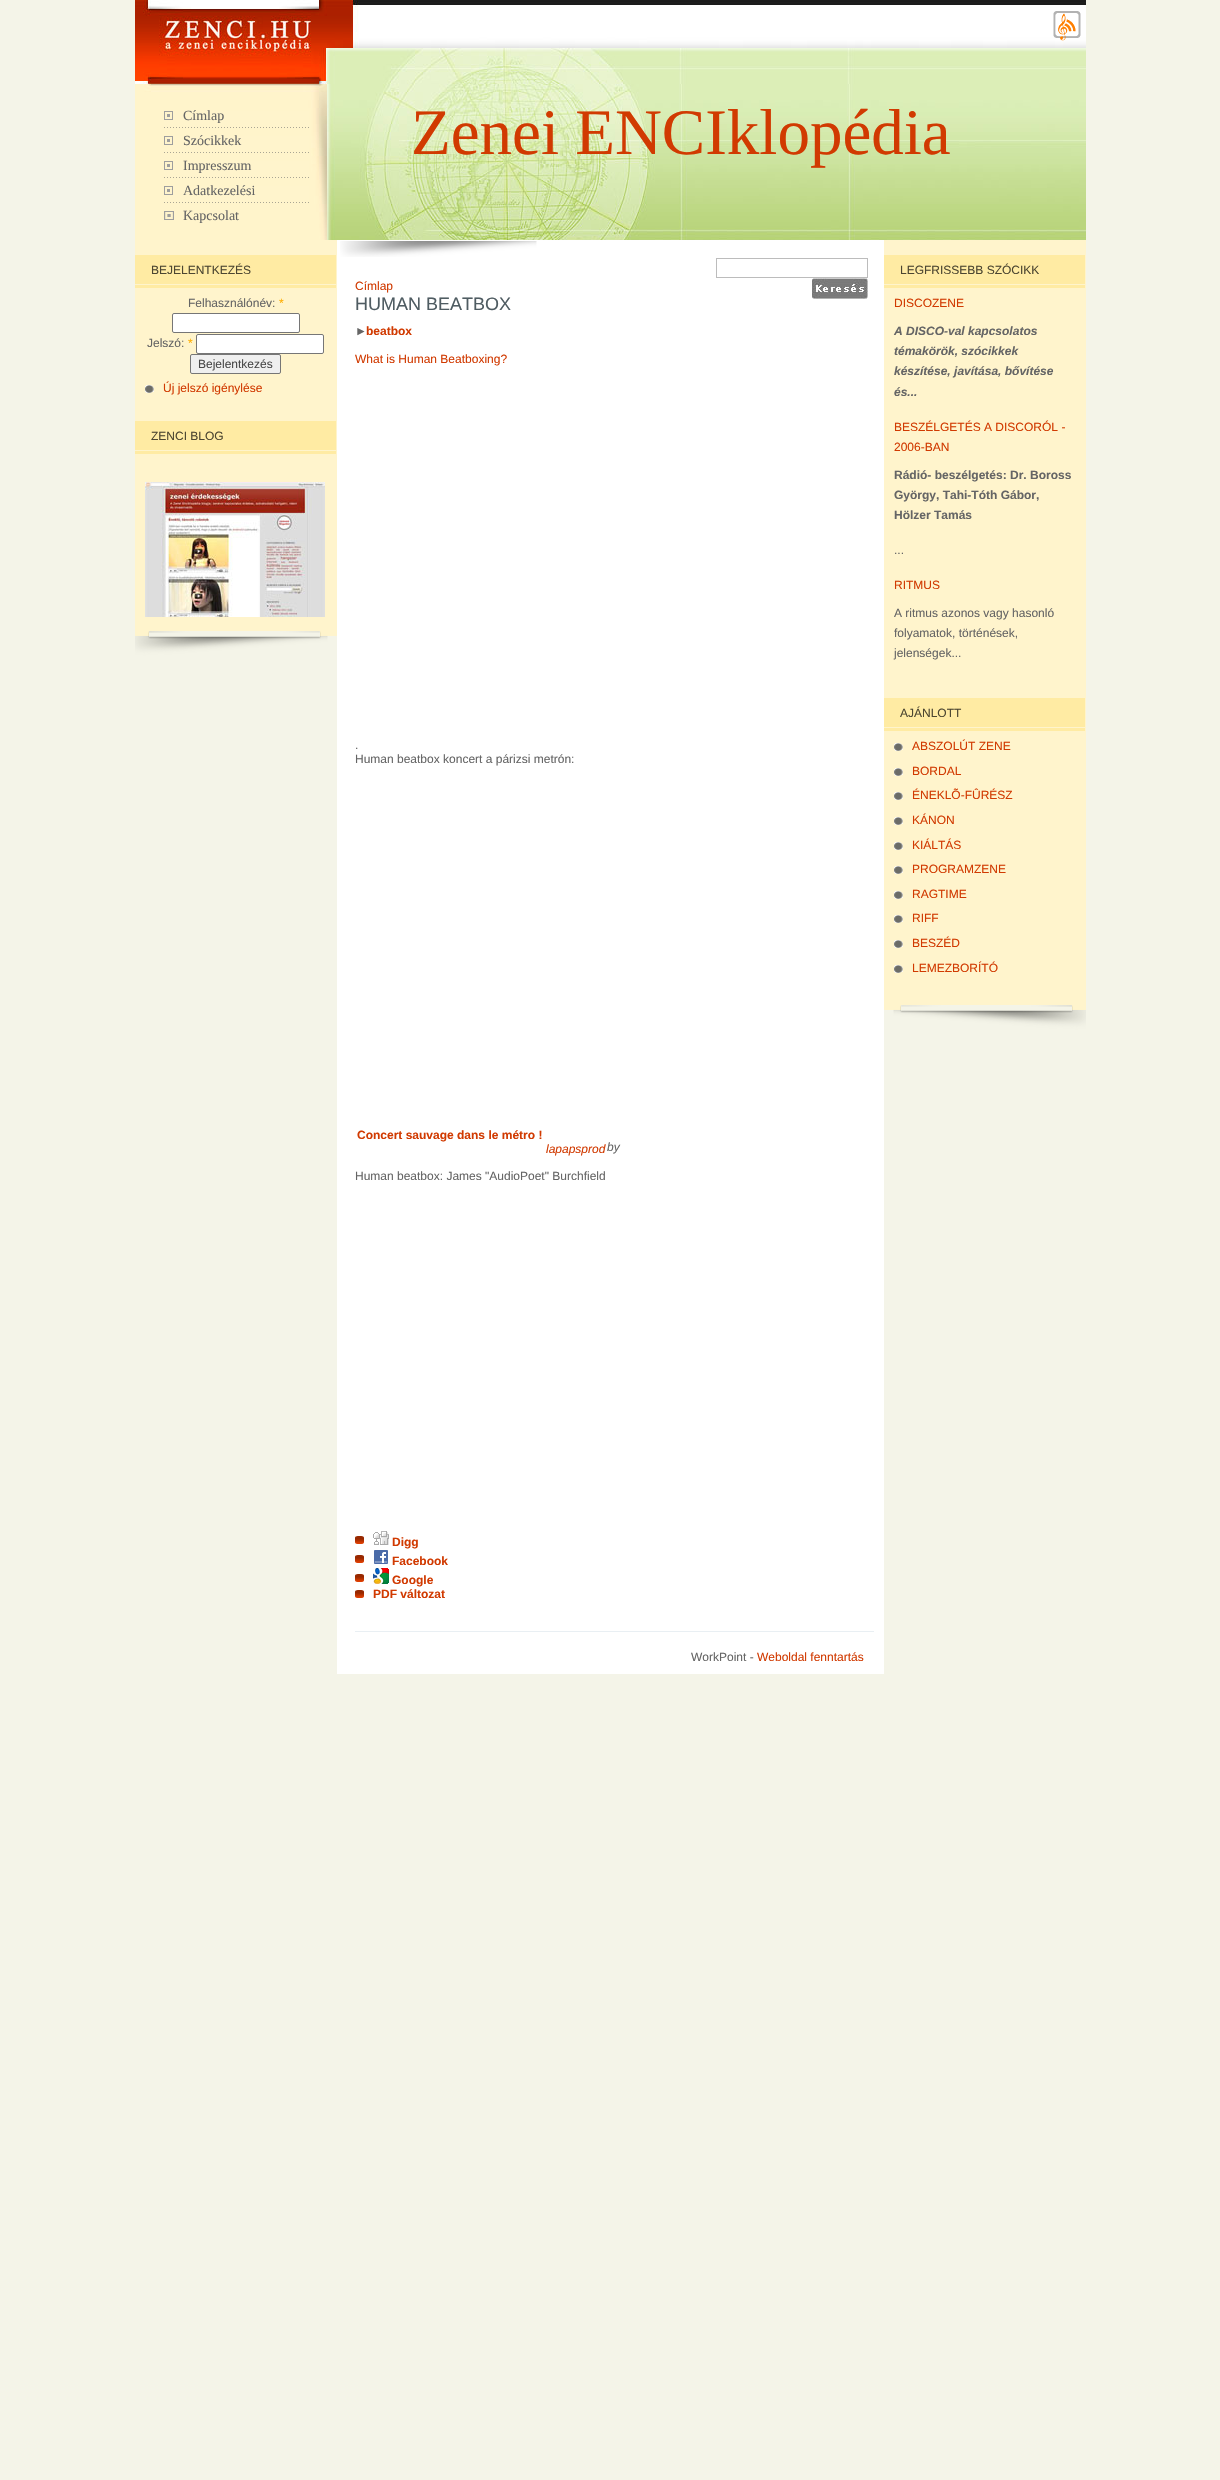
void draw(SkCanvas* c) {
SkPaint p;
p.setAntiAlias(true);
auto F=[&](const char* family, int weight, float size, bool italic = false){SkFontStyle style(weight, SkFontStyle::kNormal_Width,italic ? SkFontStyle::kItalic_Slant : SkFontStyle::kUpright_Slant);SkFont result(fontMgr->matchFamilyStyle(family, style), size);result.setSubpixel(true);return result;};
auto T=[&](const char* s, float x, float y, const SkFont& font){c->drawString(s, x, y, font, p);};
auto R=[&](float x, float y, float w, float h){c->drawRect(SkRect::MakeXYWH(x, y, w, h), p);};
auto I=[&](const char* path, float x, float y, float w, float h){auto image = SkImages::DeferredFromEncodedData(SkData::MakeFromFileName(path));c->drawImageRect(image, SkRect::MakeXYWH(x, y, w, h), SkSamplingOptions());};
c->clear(0xfff4f4e8);
I("1.png",135,0,951,84);
I("2.png",1053,11,28,30);
I("3.png",135,84,951,156);
I("4.png",164,111,145,17);
auto f1 = F("Liberation Serif",400,14);
p.setColor(0xff656565);
T("Címlap",183,120,f1);
I("4.png",164,136,145,17);
T("Szócikkek",183,145,f1);
I("4.png",164,161,145,17);
T("Impresszum",183,170,f1);
I("4.png",164,186,145,17);
T("Adatkezelési",183,195,f1);
I("5.png",164,211,10,9);
T("Kapcsolat",183,220,f1);
auto f2 = F("Liberation Serif",400,65);
p.setColor(0xffd13a01);
T("Zenei ENCIklopédia",411,154,f2);
p.setColor(0xfffff4cc);
R(135,240,202,391);
I("6.png",135,255,201,33);
auto f3 = F("Liberation Sans",400,12);
p.setColor(0xff4c4631);
T("BEJELENTKEZÉS",151,274,f3);
p.setColor(0xff656565);
T("Felhasználónév:",188,307,f3);
p.setColor(0xffffae00);
T("*",279,307,f3);
p.setColor(0xffffffff);
c->drawRoundRect(SkRect::MakeXYWH(172.5,313.5,127,19),1.5,1.5,p);
p.setStroke(true);
p.setStrokeWidth(1);
p.setColor(0xff767676);
c->drawRoundRect(SkRect::MakeXYWH(172.5,313.5,127,19),1.5,1.5,p);
p.setStroke(false);
p.setColor(0xff656565);
T("Jelszó:",147,347,f3);
p.setColor(0xffffae00);
T("*",188,347,f3);
p.setColor(0xffffffff);
c->drawRoundRect(SkRect::MakeXYWH(196.5,334.5,127,19),1.5,1.5,p);
p.setStroke(true);
p.setColor(0xff767676);
c->drawRoundRect(SkRect::MakeXYWH(196.5,334.5,127,19),1.5,1.5,p);
p.setStroke(false);
p.setColor(0xffefefef);
c->drawRoundRect(SkRect::MakeXYWH(190.5,354.5,90,19),1.5,1.5,p);
p.setStroke(true);
p.setColor(0xff767676);
c->drawRoundRect(SkRect::MakeXYWH(190.5,354.5,90,19),1.5,1.5,p);
p.setStroke(false);
p.setColor(0xff494949);
T("Bejelentkezés",198,368,f3);
I("7.png",145,385,9,8);
p.setColor(0xffd13a01);
T("Új jelszó igénylése",163,392,f3);
I("6.png",135,421,201,33);
p.setColor(0xff4c4631);
T("ZENCI BLOG",151,440,f3);
I("8.png",145,482,180,135);
I("9.png",135,631,202,28);
p.setColor(0xffffffff);
R(337,240,547,1434);
I("10.png",340,241,197,16);
p.setStroke(true);
p.setColor(0xffbcbcbc);
c->drawRect(SkRect::MakeXYWH(716.5,258.5,151,19),p);
I("11.png",812,278,56,21);
p.setStroke(false);
p.setColor(0xffd13a01);
T("Címlap",355,290,f3);
auto f4 = F("Liberation Sans",400,18);
p.setColor(0xff4f5c62);
T("HUMAN BEATBOX",355,310,f4);
p.setColor(0xffe9eff3);
R(355,1631,519,1);
auto f5 = F("Liberation Sans",700,12);
p.setColor(0xff656565);
T("►",355,335,f5);
p.setColor(0xffd13a01);
T("beatbox",366,335,f5);
T("What is Human Beatboxing?",355,363,f3);
p.setColor(0xff656565);
T(".",355,749,f3);
T("Human beatbox koncert a párizsi metrón:",355,763,f3);
p.setColor(0xffd13a01);
T("Concert sauvage dans le métro !",357,1139,f5);
auto f6 = F("Liberation Sans",400,12,true);
T("lapapsprod",546,1153,f6);
p.setColor(0xff656565);
T("by",607,1151,f6);
T("Human beatbox: James \"AudioPoet\" Burchfield",355,1180,f3);
I("12.png",355,1536,9,8);
I("13.png",373,1531,16,14);
p.setColor(0xffd13a01);
T("Digg",392,1546,f5);
I("12.png",355,1555,9,8);
I("14.png",374,1550,14,14);
T("Facebook",392,1565,f5);
I("12.png",355,1574,9,8);
I("15.png",373,1568,16,16);
T("Google",392,1584,f5);
I("12.png",355,1590,9,8);
T("PDF változat",373,1598,f5);
p.setColor(0xff656565);
T("WorkPoint -",691,1661,f3);
p.setColor(0xffd13a01);
T("Weboldal fenntartás",757,1661,f3);
p.setColor(0xfffff4cc);
R(884,240,202,765);
I("6.png",884,255,201,33);
p.setColor(0xff4c4631);
T("LEGFRISSEBB SZÓCIKK",900,274,f3);
p.setColor(0xffd13a01);
T("DISCOZENE",894,307,f3);
auto f7 = F("Liberation Sans",700,12,true);
p.setColor(0xff656565);
T("A DISCO-val kapcsolatos",894,335,f7);
T("témakörök, szócikkek",894,355,f7);
T("készítése, javítása, bővítése",894,375,f7);
T("és...",894,396,f7);
p.setColor(0xffd13a01);
T("BESZÉLGETÉS A DISCORÓL -",894,431,f3);
T("2006-BAN",894,451,f3);
p.setColor(0xff656565);
T("Rádió- beszélgetés: Dr. Boross",894,479,f5);
T("György, Tahi-Tóth Gábor,",894,499,f5);
T("Hölzer Tamás",894,519,f5);
T("...",894,554,f3);
p.setColor(0xffd13a01);
T("RITMUS",894,589,f3);
p.setColor(0xff656565);
T("A ritmus azonos vagy hasonló",894,617,f3);
T("folyamatok, történések,",894,637,f3);
T("jelenségek...",894,657,f3);
I("6.png",884,698,201,33);
p.setColor(0xff4c4631);
T("AJÁNLOTT",900,717,f3);
I("16.png",894,743,9,8);
p.setColor(0xffd13a01);
T("ABSZOLÚT ZENE",912,750,f3);
I("16.png",894,768,9,8);
T("BORDAL",912,775,f3);
I("16.png",894,792,9,8);
T("ÉNEKLÕ-FÛRÉSZ",912,799,f3);
I("16.png",894,817,9,8);
T("KÁNON",912,824,f3);
I("16.png",894,842,9,8);
T("KIÁLTÁS",912,849,f3);
I("16.png",894,866,9,8);
T("PROGRAMZENE",912,873,f3);
I("16.png",894,891,9,8);
T("RAGTIME",912,898,f3);
I("16.png",894,915,9,8);
T("RIFF",912,922,f3);
I("16.png",894,940,9,8);
T("BESZÉD",912,947,f3);
I("16.png",894,965,9,8);
T("LEMEZBORÍTÓ",912,972,f3);
I("17.png",884,1005,202,28);
}
